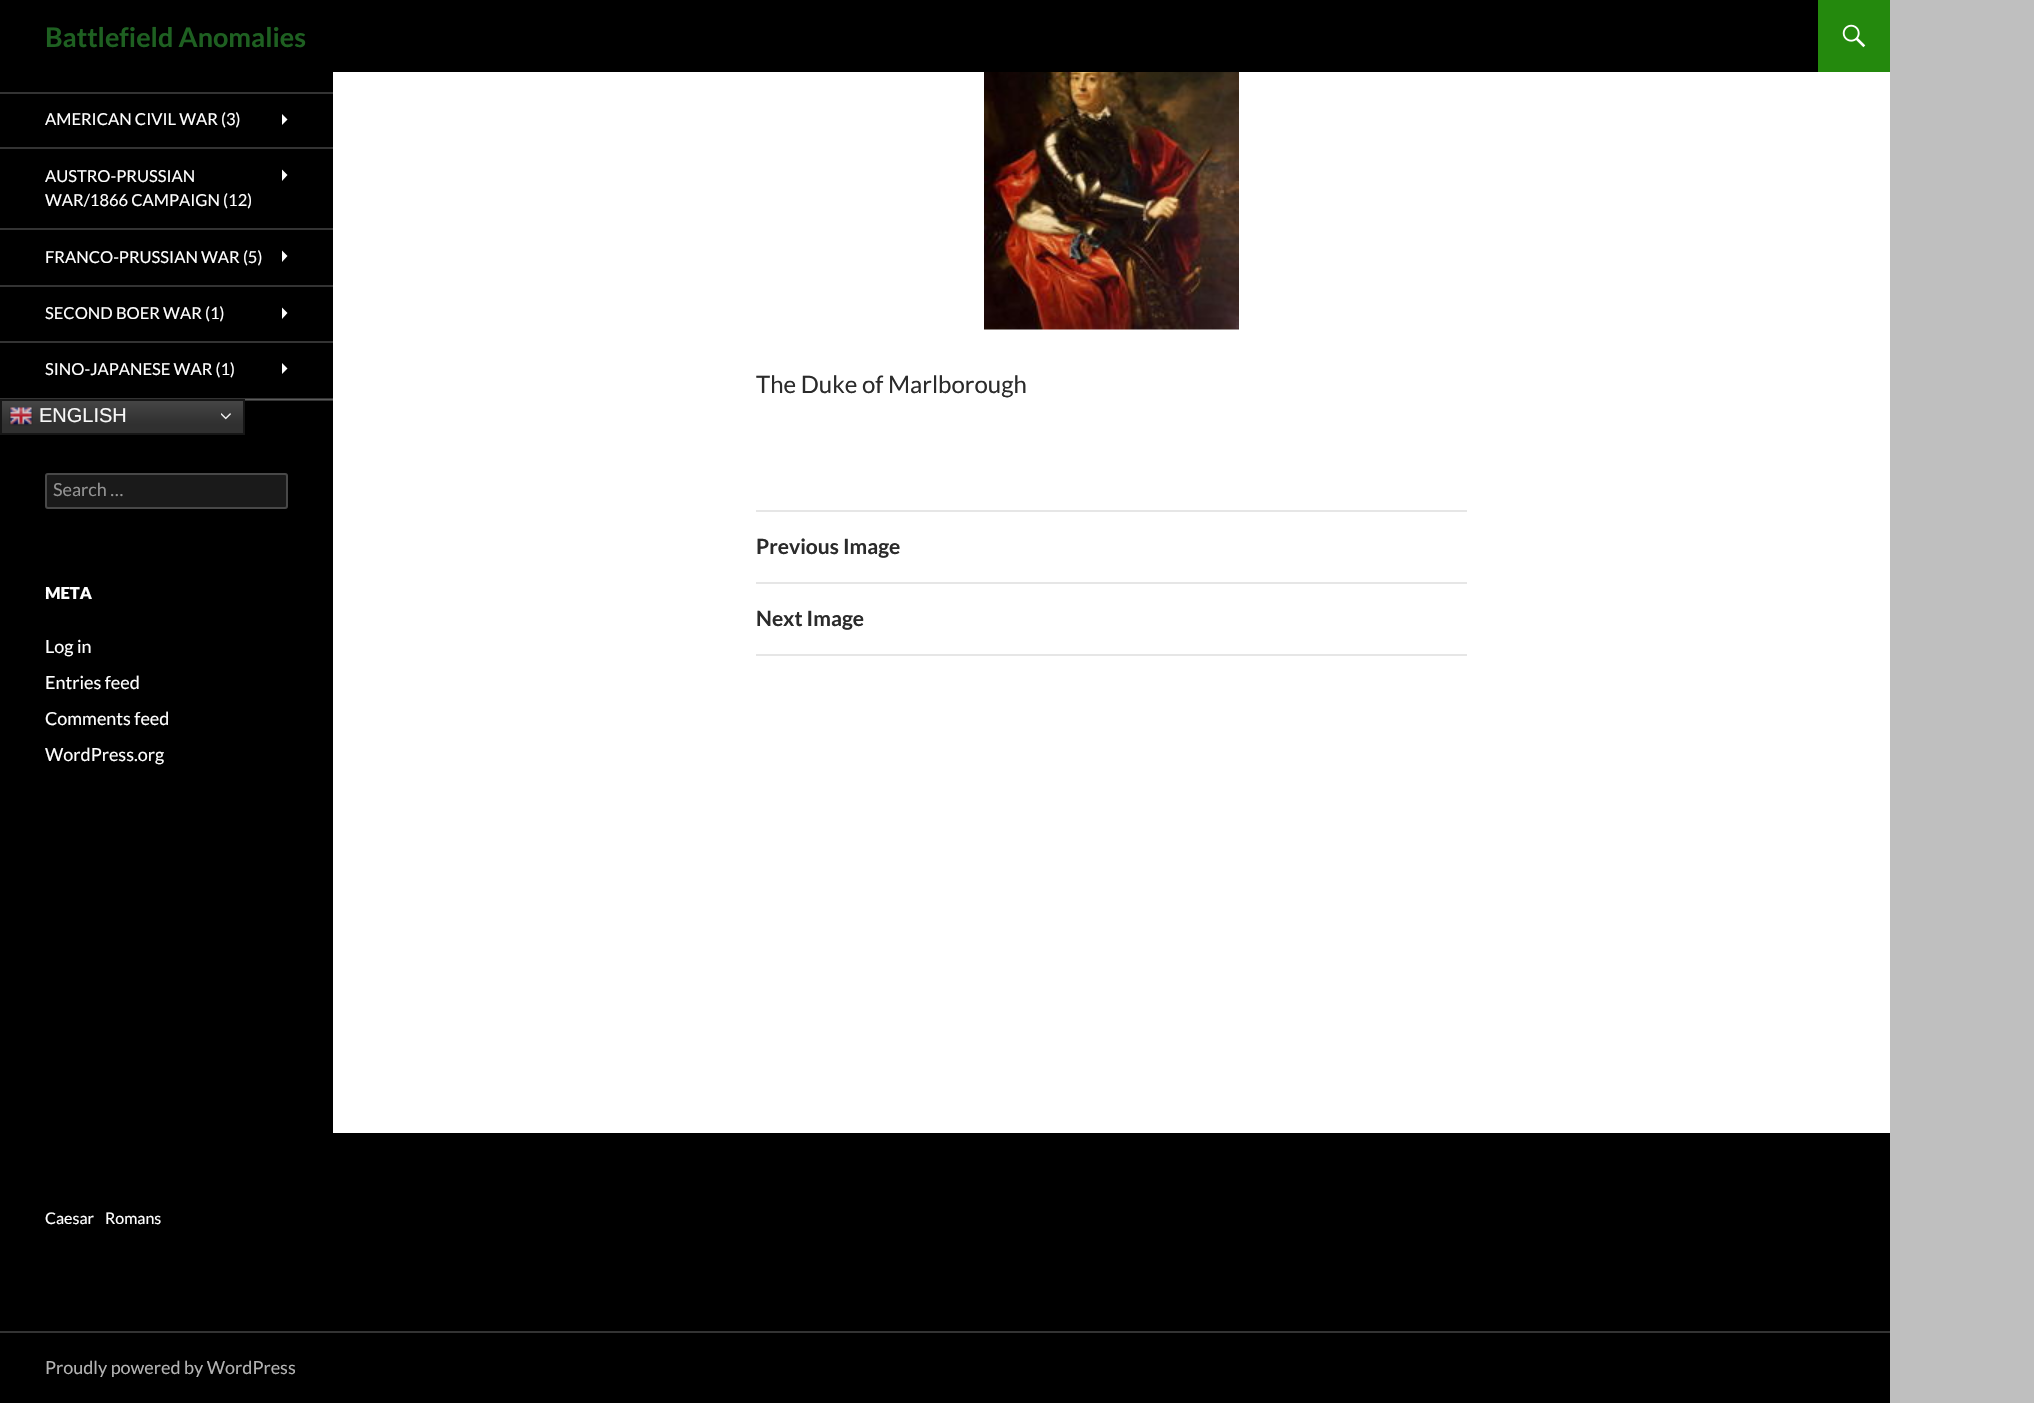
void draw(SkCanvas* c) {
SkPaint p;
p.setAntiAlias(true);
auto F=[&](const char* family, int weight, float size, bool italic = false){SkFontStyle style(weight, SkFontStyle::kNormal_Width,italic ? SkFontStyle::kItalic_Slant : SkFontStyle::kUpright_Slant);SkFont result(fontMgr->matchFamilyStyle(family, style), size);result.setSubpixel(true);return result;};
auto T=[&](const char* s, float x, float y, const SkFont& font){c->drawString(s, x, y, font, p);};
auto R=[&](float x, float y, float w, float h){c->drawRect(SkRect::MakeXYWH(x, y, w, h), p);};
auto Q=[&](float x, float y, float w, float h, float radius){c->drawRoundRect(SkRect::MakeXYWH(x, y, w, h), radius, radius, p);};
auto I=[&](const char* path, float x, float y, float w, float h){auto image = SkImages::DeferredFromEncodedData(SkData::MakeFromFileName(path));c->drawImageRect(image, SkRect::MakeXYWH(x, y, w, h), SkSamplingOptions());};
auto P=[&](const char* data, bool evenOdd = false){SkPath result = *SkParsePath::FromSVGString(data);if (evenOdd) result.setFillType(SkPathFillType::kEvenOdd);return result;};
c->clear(0xffbfbfbf);
p.setColor(0xffffffff);
R(333,72,1557,1061);
p.setColor(0xff000000);
R(0,0,1818,72);
auto f1 = F("Lato",700,27);
p.setColor(0xff1e6021);
T("Battlefield Anomalies",45,47,f1);
p.setColor(0xff24890d);
R(1818,0,72,72);
I("1.png",1842,24,24,24);
p.setColor(0xff000000);
R(0,72,333,1061);
p.setColor(0xff333333);
R(0,398,333,1);
R(245,400,88,1);
p.setColor(0xff5c5c5c);
R(245,399,88,1);
p.setColor(0xff333333);
R(0,92,333,2);
auto f2 = F("Lato",400,16.5);
p.setColor(0xffffffff);
T("AMERICAN CIVIL WAR (3)",45,125,f2);
c->drawPath(P("M282 125v-11l5.5 5.5z"),p);
p.setColor(0xff333333);
R(0,147,333,2);
p.setColor(0xffffffff);
T("AUSTRO-PRUSSIAN",45,182,f2);
c->drawPath(P("M282 181v-11.5l5.5 5.5z"),p);
T("WAR/1866 CAMPAIGN (12)",45,206,f2);
p.setColor(0xff333333);
R(0,228,333,2);
p.setColor(0xffffffff);
T("FRANCO-PRUSSIAN WAR (5)",45,263,f2);
c->drawPath(P("M282 262v-11.5l5.5 5.5z"),p);
p.setColor(0xff333333);
R(0,285,333,2);
p.setColor(0xffffffff);
T("SECOND BOER WAR (1)",45,319,f2);
c->drawPath(P("M282 319v-11.5l5.5 5.5z"),p);
p.setColor(0xff333333);
R(0,341,333,2);
p.setColor(0xffffffff);
T("SINO-JAPANESE WAR (1)",45,375,f2);
c->drawPath(P("M282 374v-11l5.5 5.5z"),p);
{
const SkColor colors[] = {0xff474747,0xff303030};
const float stops[] = {0,.7};
const SkPoint ends[] = {{122,399}, {122,435}};
p.setShader(SkGradientShader::MakeLinear(ends, colors, stops, 2, SkTileMode::kClamp));
p.setAlpha(255);
}
R(2,401,241,32);
p.setStroke(true);
p.setStrokeWidth(2);
p.setShader(nullptr);
p.setColor(0xff161616);
c->drawRect(SkRect::MakeXYWH(1,400,243,34),p);
I("2.png",9,407,24,19);
auto f3 = F("Liberation Sans",400,20);
p.setStroke(false);
p.setColor(0xfff7f7f7);
T("ENGLISH",39,422,f3);
I("3.png",221,413,10,7);
p.setColor(0xff1a1a1a);
Q(45,473,243,36,3);
p.setStroke(true);
p.setColor(0x33ffffff);
c->drawRoundRect(SkRect::MakeXYWH(46,474,241,34),2,2,p);
auto f4 = F("Lato",400,18);
p.setStroke(false);
p.setColor(0xff939393);
T("Search …",53,496,f4);
auto f5 = F("Lato",900,16.5);
p.setColor(0xffffffff);
T("META",45,599,f5);
T("Log in",45,653,f4);
T("Entries feed",45,689,f4);
T("Comments feed",45,725,f4);
T("WordPress.org",45,761,f4);
I("4.png",984,72,255,258);
auto f6 = F("Lato",400,24);
p.setColor(0xff2b2b2b);
T("The Duke of Marlborough",756,393,f6);
p.setColor(0xffe6e6e6);
R(756,510,711,2);
R(756,582,711,2);
auto f7 = F("Lato",700,21);
p.setColor(0xff2b2b2b);
T("Previous Image",756,554,f7);
p.setColor(0xffe6e6e6);
R(756,654,711,2);
p.setColor(0xff2b2b2b);
T("Next Image",756,626,f7);
p.setColor(0xff000000);
R(0,1133,1890,270);
auto f8 = F("Lato",400,16);
p.setColor(0xffffffff);
T("Caesar",45,1224,f8);
T("Romans",105,1224,f8);
p.setColor(0xff333333);
R(0,1331,1890,2);
p.setColor(0xffb3b3b3);
T("Proudly powered by WordPress",45,1374,f4);
}
